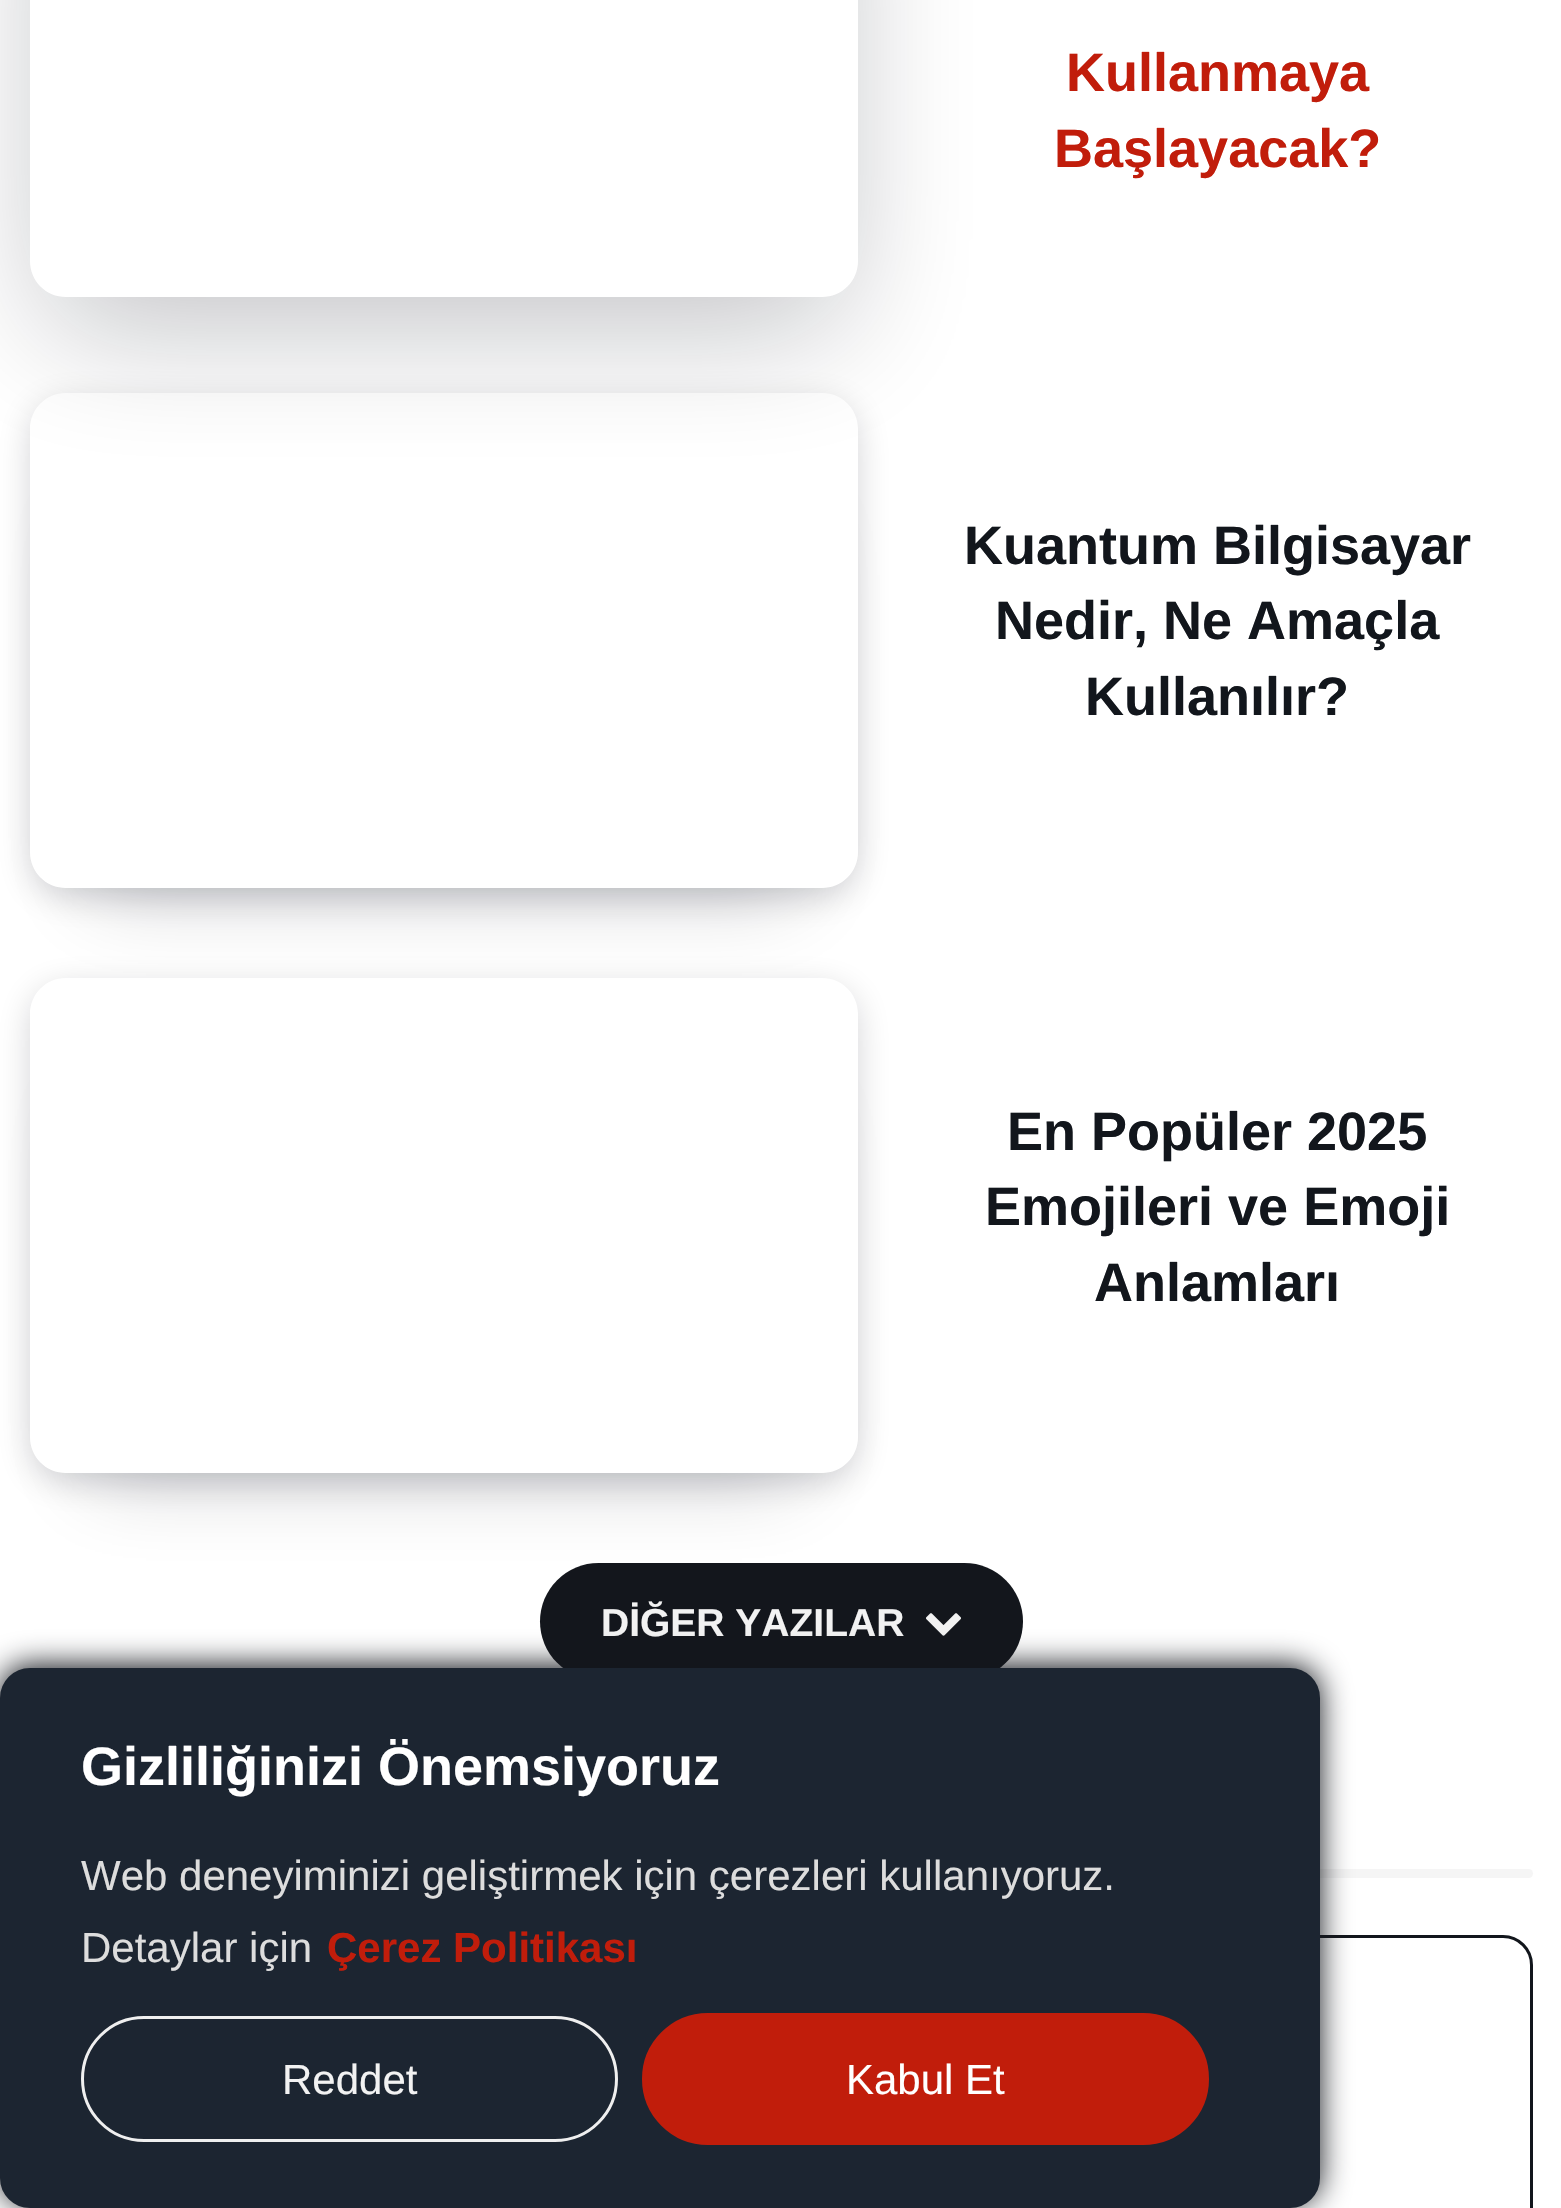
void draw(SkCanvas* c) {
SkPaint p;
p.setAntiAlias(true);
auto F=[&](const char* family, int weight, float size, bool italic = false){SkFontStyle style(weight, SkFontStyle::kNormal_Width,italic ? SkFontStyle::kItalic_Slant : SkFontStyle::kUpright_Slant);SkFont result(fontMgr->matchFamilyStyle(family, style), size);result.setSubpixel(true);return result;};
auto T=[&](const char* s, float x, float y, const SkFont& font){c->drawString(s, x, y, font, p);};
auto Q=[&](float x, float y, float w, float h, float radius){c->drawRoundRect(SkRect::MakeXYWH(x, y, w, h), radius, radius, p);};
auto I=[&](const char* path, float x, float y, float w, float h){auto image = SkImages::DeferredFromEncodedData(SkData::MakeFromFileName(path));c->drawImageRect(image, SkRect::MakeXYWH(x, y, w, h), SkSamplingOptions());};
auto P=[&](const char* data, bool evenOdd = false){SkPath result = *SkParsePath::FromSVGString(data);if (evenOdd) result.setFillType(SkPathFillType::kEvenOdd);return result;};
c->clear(0xffffffff);
c->save();
c->clipPath(P("M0 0h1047v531h-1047zm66-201h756c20 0 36 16 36 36v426c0 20-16 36-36 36h-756c-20 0-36-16-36-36v-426c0-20 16-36 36-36z",true),true);
p.setColor(0x40070a19);
p.setMaskFilter(SkMaskFilter::MakeBlur(kNormal_SkBlurStyle, 67.5));
c->drawRoundRect(SkRect::MakeXYWH(45,-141,798,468),21,21,p);
p.setMaskFilter(nullptr);
c->restore();
auto f1 = F("Liberation Sans",700,54);
p.setColor(0xffc11d0b);
T("Kullanmaya",1066,91,f1);
T("Başlayacak?",1054,167,f1);
c->save();
c->clipPath(P("M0 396h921v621h-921zm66-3h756c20 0 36 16 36 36v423c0 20-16 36-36 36h-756c-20 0-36-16-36-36v-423c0-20 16-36 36-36z",true),true);
p.setColor(0x33070a19);
p.setMaskFilter(SkMaskFilter::MakeBlur(kNormal_SkBlurStyle, 40.5));
c->drawRect(SkRect::MakeXYWH(90,519,708,375),p);
p.setMaskFilter(nullptr);
c->restore();
c->save();
c->clipPath(P("M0 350h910v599h-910zm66 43h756c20 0 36 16 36 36v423c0 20-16 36-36 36h-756c-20 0-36-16-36-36v-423c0-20 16-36 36-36z",true),true);
p.setMaskFilter(SkMaskFilter::MakeBlur(kNormal_SkBlurStyle, 18));
c->drawRoundRect(SkRect::MakeXYWH(33,405,822,489),33,33,p);
p.setMaskFilter(nullptr);
c->restore();
p.setColor(0xff12161c);
T("Kuantum Bilgisayar",964,564,f1);
T("Nedir, Ne Amaçla",995,639,f1);
T("Kullanılır?",1085,715,f1);
c->save();
c->clipPath(P("M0 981h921v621h-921zm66-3h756c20 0 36 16 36 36v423c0 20-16 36-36 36h-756c-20 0-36-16-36-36v-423c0-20 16-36 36-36z",true),true);
p.setColor(0x33070a19);
p.setMaskFilter(SkMaskFilter::MakeBlur(kNormal_SkBlurStyle, 40.5));
c->drawRect(SkRect::MakeXYWH(90,1104,708,375),p);
p.setMaskFilter(nullptr);
c->restore();
c->save();
c->clipPath(P("M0 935h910v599h-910zm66 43h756c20 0 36 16 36 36v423c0 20-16 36-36 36h-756c-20 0-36-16-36-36v-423c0-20 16-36 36-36z",true),true);
p.setMaskFilter(SkMaskFilter::MakeBlur(kNormal_SkBlurStyle, 18));
c->drawRoundRect(SkRect::MakeXYWH(33,990,822,489),33,33,p);
p.setMaskFilter(nullptr);
c->restore();
p.setColor(0xff12161c);
T("En Popüler 2025",1007,1150,f1);
T("Emojileri ve Emoji",985,1225,f1);
T("Anlamları",1094,1301,f1);
p.setColor(0xff13161c);
Q(540,1563,483,117,58.5);
auto f2 = F("Liberation Sans",700,39);
p.setColor(0xfff2f2f2);
T("DİĞER YAZILAR",601,1636,f2);
I("1.png",926,1613,35,23);
p.setColor(0xfff5f5f5);
Q(30,1869,1503,9,4.5);
p.setStroke(true);
p.setStrokeWidth(3);
p.setColor(0xff12161c);
c->drawRoundRect(SkRect::MakeXYWH(31.5,1936.5,1500,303),28.5,28.5,p);
p.setStroke(false);
p.setColor(0xff13161c);
p.setMaskFilter(SkMaskFilter::MakeBlur(kNormal_SkBlurStyle, 15));
c->drawRoundRect(SkRect::MakeXYWH(0,1665,1320,540),30,30,p);
p.setMaskFilter(nullptr);
p.setColor(0xff1c2531);
c->drawRoundRect(SkRect::MakeXYWH(1.5,1669.5,1317,537),28.5,28.5,p);
p.setStroke(true);
c->drawRoundRect(SkRect::MakeXYWH(1.5,1669.5,1317,537),28.5,28.5,p);
p.setStroke(false);
p.setColor(0xffffffff);
T("Gizliliğinizi Önemsiyoruz",81,1785,f1);
auto f3 = F("Liberation Sans",400,42);
p.setColor(0xffdddddd);
T("Web deneyiminizi geliştirmek için çerezleri kullanıyoruz.",81,1890,f3);
T("Detaylar için",81,1962,f3);
auto f4 = F("Liberation Sans",700,42);
p.setColor(0xffc11d0b);
T("Çerez Politikası",327,1962,f4);
p.setStroke(true);
p.setColor(0xffefefef);
c->drawRoundRect(SkRect::MakeXYWH(82.5,2017.5,534,123),61.5,61.5,p);
p.setStroke(false);
p.setColor(0xfff2f2f2);
T("Reddet",282,2094,f3);
p.setColor(0xffc11d0b);
c->drawRoundRect(SkRect::MakeXYWH(645,2016,561,126),63,63,p);
p.setStroke(true);
p.setStrokeWidth(6);
c->drawRoundRect(SkRect::MakeXYWH(645,2016,561,126),63,63,p);
p.setStroke(false);
p.setColor(0xffffffff);
T("Kabul Et",846,2094,f3);
}
